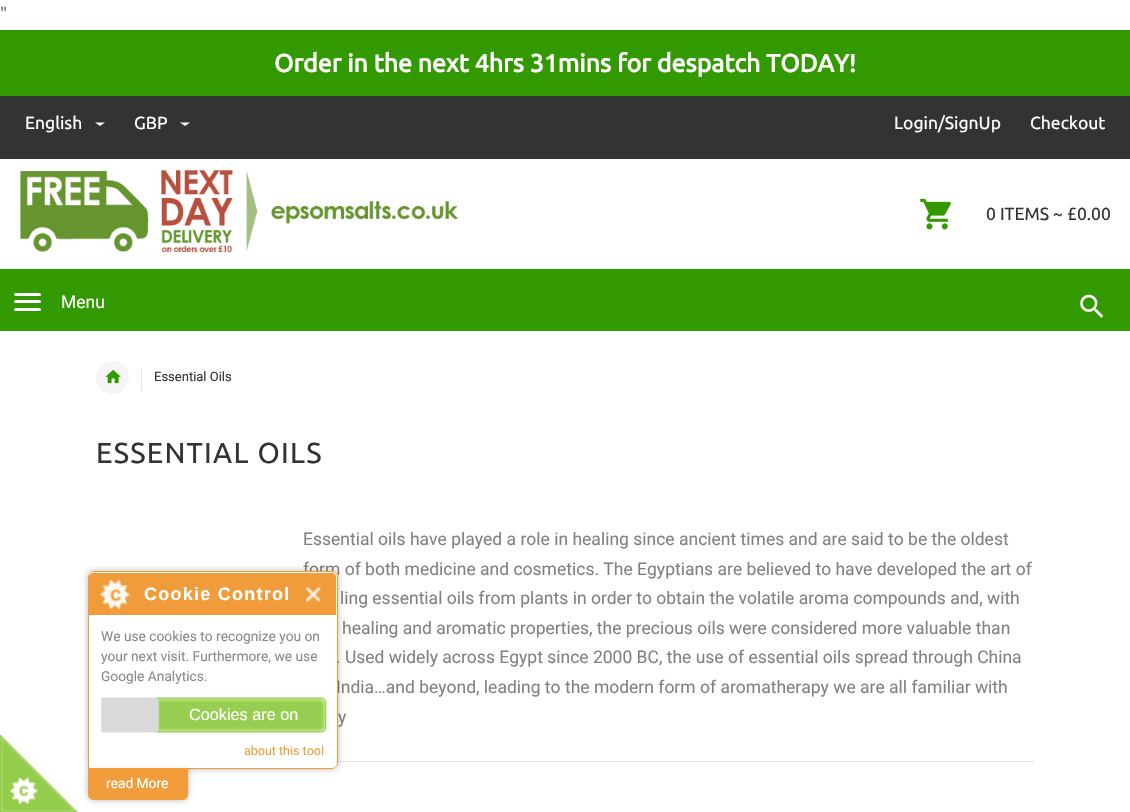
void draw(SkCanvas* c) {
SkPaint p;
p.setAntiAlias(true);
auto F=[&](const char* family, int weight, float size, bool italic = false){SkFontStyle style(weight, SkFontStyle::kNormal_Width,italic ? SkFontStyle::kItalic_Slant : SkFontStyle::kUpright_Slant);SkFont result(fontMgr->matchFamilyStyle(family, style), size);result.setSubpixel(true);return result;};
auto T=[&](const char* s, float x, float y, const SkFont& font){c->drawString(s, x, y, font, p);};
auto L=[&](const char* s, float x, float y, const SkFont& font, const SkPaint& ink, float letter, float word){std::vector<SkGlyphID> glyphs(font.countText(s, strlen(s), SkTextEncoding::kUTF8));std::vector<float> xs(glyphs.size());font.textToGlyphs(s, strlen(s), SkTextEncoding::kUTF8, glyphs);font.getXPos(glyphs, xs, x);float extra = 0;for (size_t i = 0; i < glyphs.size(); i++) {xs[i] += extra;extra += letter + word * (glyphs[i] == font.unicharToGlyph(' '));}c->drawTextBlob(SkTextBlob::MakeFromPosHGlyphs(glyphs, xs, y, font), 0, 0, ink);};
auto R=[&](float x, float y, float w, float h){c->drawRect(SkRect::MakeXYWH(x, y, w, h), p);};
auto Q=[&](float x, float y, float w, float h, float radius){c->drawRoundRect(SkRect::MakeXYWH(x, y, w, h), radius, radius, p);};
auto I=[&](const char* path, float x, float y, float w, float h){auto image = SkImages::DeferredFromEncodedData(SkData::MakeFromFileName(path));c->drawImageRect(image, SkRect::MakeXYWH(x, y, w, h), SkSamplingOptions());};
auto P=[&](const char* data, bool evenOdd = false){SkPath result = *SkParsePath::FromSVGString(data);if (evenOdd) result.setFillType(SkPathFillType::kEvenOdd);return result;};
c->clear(0xffffffff);
auto f1 = F("Ubuntu",400,17.5);
p.setColor(0xff828181);
T("\"",0,20,f1);
p.setColor(0xff339900);
R(0,30,1130,66);
auto f2 = F("Ubuntu",700,25);
p.setColor(0xffffffff);
T("Order in the next 4hrs 31mins for despatch TODAY!",274,72,f2);
p.setColor(0xff333333);
R(0,96,1130,63);
p.setColor(0xffffffff);
T("English",25,129,f1);
c->drawPath(P("M95 122.5h10l-5 3.5z"),p);
T("GBP",134,129,f1);
c->drawPath(P("M180 122.5h10l-5 3.5z"),p);
T("Login/SignUp",894,129,f1);
T("Checkout",1030,129,f1);
I("1.png",20,170,439,83);
I("2.png",920,198,31,32);
p.setColor(0xff333333);
T("0 ITEMS ~ £0.00",986,220,f1);
p.setColor(0xff339900);
R(0,269,1130,62);
I("3.png",1080,294,24,24);
p.setColor(0xffffffff);
Q(14,293,27,3,1.5);
Q(14,300,27,3,1.5);
auto f3 = F("Roboto",400,17.5);
T("Menu",61,308,f3);
Q(14,308,27,3,1.5);
p.setColor(0xfff5f5f5);
c->drawCircle(112.5,377.5,16.5,p);
I("4.png",105,369,16,15);
p.setColor(0xffe5e5e5);
R(141,368,1,23);
auto f4 = F("Roboto",400,13);
p.setColor(0xff333333);
T("Essential Oils",154,381,f4);
auto f5 = F("Ubuntu",400,28.75);
L("ESSENTIAL OILS",96,463,f5,p,1.25,0);
p.setColor(0xff828181);
T("Essential oils have played a role in healing since ancient times and are said to be the oldest",303,545,f3);
T("form of both medicine and cosmetics. The Egyptians are believed to have developed the art of",303,575,f3);
T("ling essential oils from plants in order to obtain the volatile aroma compounds and, with",340,604,f3);
T("healing and aromatic properties, the precious oils were considered more valuable than",342,634,f3);
T(". Used widely across Egypt since 2000 BC, the use of essential oils spread through China",336,663,f3);
T("India…and beyond, leading to the modern form of aromatherapy we are all familiar with",336,693,f3);
T("y",338,723,f3);
p.setColor(0xffe5e5e5);
R(96,761,938,1);
I("5.png",0,735,78,77);
c->save();
c->clipPath(P("M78 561h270v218h-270zm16 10h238c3.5 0 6 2.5 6 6v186c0 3.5-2.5 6-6 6h-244v-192c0-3.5 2.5-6 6-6z",true),true);
p.setColor(0x47000000);
p.setMaskFilter(SkMaskFilter::MakeBlur(kNormal_SkBlurStyle, 3));
c->drawRoundRect(SkRect::MakeXYWH(88,571,250,198),6,6,p);
p.setMaskFilter(nullptr);
c->restore();
p.setColor(0xedffffff);
c->drawPath(P("M94 571h238c3.5 0 6 2.5 6 6v186c0 3.5-2.5 6-6 6h-244v-192c0-3.5 2.5-6 6-6z"),p);
p.setStroke(true);
p.setStrokeWidth(1);
p.setColor(0xedf0942b);
c->drawPath(P("M94 571.5h238c3 0 5.5 2.5 5.5 5.5v186c0 3-2.5 5.5-5.5 5.5h-243.5v-191.5c0-3 2.5-5.5 5.5-5.5z"),p);
p.setStroke(false);
p.setColor(0x47000000);
p.setMaskFilter(SkMaskFilter::MakeBlur(kNormal_SkBlurStyle, 3));
c->drawRoundRect(SkRect::MakeXYWH(88,766,100,34),6,6,p);
p.setMaskFilter(nullptr);
p.setColor(0xfff19c3b);
c->drawPath(P("M88 766h100v28c0 3.5-2.5 6-6 6h-88c-3.5 0-6-2.5-6-6z"),p);
p.setColor(0xedffffff);
c->drawPath(P("M95 573h235c3.5 0 6 2.5 6 6v183c0 3.5-2.5 6-6 6h-241v-189c0-3.5 2.5-6 6-6z"),p);
p.setColor(0xedf0942b);
c->drawPath(P("M93 573h239c2 0 4 2 4 4v38h-247v-38c0-2 2-4 4-4z"),p);
I("6.png",100,580,31,30);
auto f6 = F("Liberation Sans",700,18);
p.setColor(0xffffffff);
L("Cookie Control",144,600,f6,p,1.25,0);
I("7.png",306,586,15,17);
auto f7 = F("Roboto",400,13.75);
p.setColor(0xff8b8a8a);
T("We use cookies to recognize you on",101,641,f7);
T("your next visit. Furthermore, we use",101,661,f7);
T("Google Analytics.",101,681,f7);
I("8.png",101,697,226,36);
auto f8 = F("Liberation Sans",400,16.25);
p.setColor(0xffffffff);
T("Cookies are on",189,720,f8);
auto f9 = F("Roboto",400,12.5);
p.setColor(0xfff19c3b);
T("about this tool",244,755,f9);
p.setColor(0xffffffff);
T("read More",106,788,f7);
}
